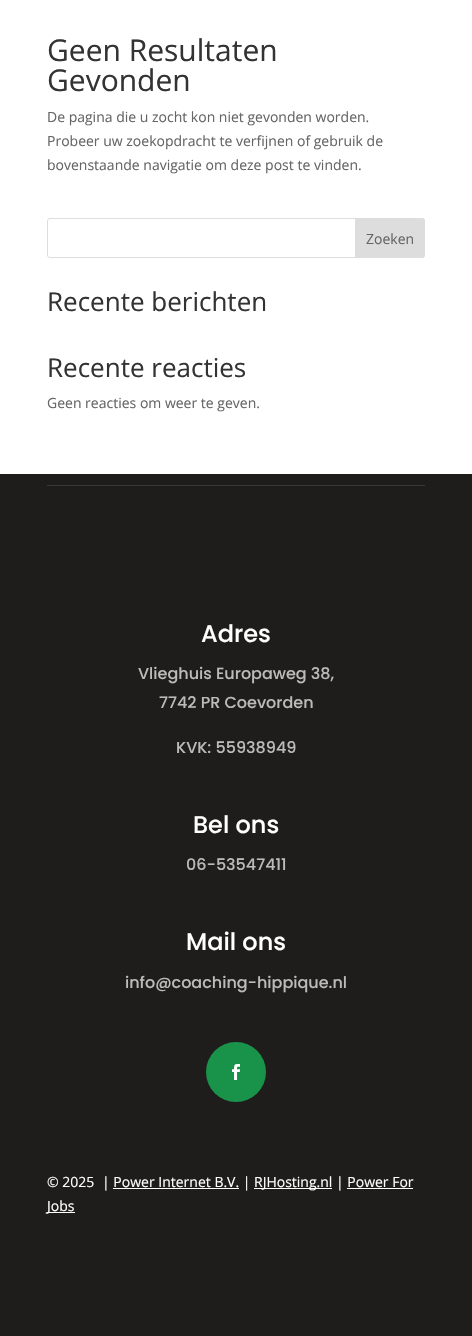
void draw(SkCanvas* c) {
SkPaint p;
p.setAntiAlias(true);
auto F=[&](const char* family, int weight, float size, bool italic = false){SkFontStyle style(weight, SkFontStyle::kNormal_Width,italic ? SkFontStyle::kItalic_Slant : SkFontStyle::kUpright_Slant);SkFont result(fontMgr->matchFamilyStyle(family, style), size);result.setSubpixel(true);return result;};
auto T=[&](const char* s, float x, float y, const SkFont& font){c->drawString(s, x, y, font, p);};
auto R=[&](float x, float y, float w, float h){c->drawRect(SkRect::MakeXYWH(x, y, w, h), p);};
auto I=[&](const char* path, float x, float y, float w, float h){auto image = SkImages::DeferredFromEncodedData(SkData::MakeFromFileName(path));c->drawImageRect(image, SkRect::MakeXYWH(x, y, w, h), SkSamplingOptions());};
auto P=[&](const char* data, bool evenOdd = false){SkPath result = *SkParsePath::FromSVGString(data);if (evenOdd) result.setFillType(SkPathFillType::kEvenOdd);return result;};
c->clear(0xffffffff);
auto f1 = F("Open Sans",400,30);
p.setColor(0xff333333);
T("Geen Resultaten",47,61,f1);
T("Gevonden",47,91,f1);
auto f2 = F("Open Sans",400,14);
p.setColor(0xff666666);
T("De pagina die u zocht kon niet gevonden worden.",47,122,f2);
T("Probeer uw zoekopdracht te verfijnen of gebruik de",47,146,f2);
T("bovenstaande navigatie om deze post te vinden.",47,170,f2);
p.setStroke(true);
p.setStrokeWidth(1);
p.setColor(0xffdddddd);
c->drawRoundRect(SkRect::MakeXYWH(47.5,218.5,377,39),2.5,2.5,p);
p.setStroke(false);
c->drawPath(P("M355.5 218.5h66.5c1.5 0 2.5 1 2.5 2.5v34c0 1.5-1 2.5-2.5 2.5h-66.5z"),p);
p.setStroke(true);
c->drawPath(P("M355.5 218.5h66.5c1.5 0 2.5 1 2.5 2.5v34c0 1.5-1 2.5-2.5 2.5h-66.5z"),p);
p.setStroke(false);
p.setColor(0xff666666);
T("Zoeken",366,244,f2);
auto f3 = F("Open Sans",400,26);
p.setColor(0xff333333);
T("Recente berichten",47,311,f3);
T("Recente reacties",47,377,f3);
p.setColor(0xff666666);
T("Geen reacties om weer te geven.",47,408,f2);
p.setColor(0xff1e1d1c);
R(0,474,472,862);
p.setColor(0xff393837);
R(47,485,378,1);
auto f4 = F("Poppins",500,24);
p.setColor(0xffffffff);
T("Adres",201,642,f4);
auto f5 = F("Poppins",500,16);
p.setColor(0xffbcbbbb);
T("Vlieghuis Europaweg 38,",138,679,f5);
T("7742 PR Coevorden",159,708,f5);
T("KVK: 55938949",176,753,f5);
p.setColor(0xffffffff);
T("Bel ons",193,833,f4);
p.setColor(0xffbcbbbb);
T("06-53547411",186,870,f5);
p.setColor(0xffffffff);
T("Mail ons",186,950,f4);
p.setColor(0xffbcbbbb);
T("info@coaching-hippique.nl",125,988,f5);
p.setColor(0xff19924a);
c->drawCircle(236,1072,30,p);
I("1.png",232,1064,8,16);
p.setColor(0xffffffff);
T("© 2025",47,1187,f2);
T("| Power Internet B.V. |",102,1187,f2);
R(254,1188,78,1);
T("RJHosting.nl | Power For",254,1187,f2);
R(113,1188,126,1);
R(47,1212,28,1);
T("Jobs",47,1211,f2);
R(347,1188,66,1);
}
